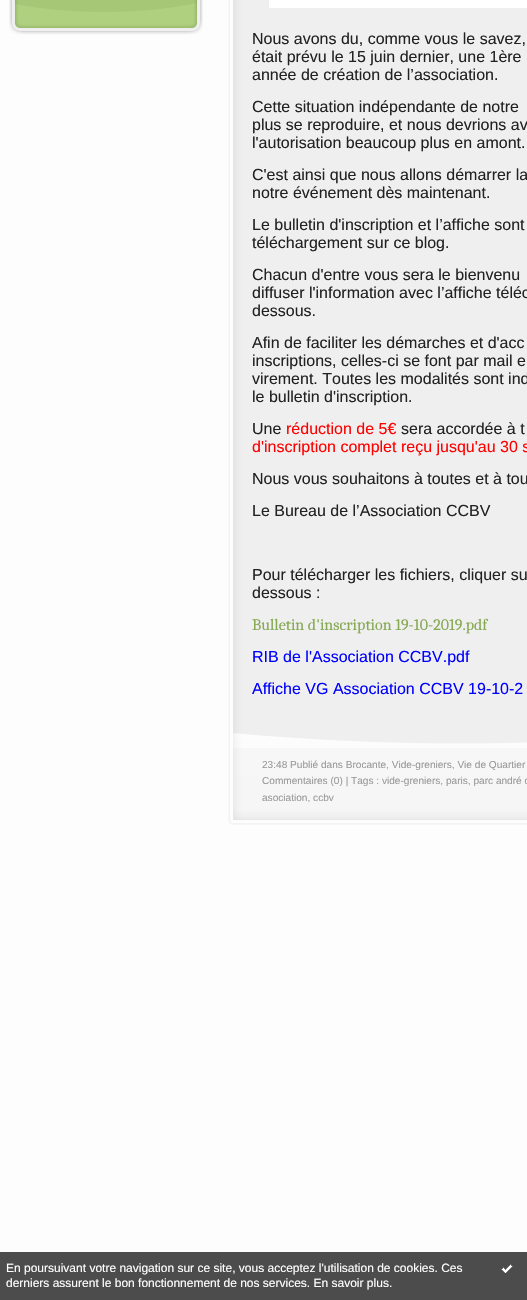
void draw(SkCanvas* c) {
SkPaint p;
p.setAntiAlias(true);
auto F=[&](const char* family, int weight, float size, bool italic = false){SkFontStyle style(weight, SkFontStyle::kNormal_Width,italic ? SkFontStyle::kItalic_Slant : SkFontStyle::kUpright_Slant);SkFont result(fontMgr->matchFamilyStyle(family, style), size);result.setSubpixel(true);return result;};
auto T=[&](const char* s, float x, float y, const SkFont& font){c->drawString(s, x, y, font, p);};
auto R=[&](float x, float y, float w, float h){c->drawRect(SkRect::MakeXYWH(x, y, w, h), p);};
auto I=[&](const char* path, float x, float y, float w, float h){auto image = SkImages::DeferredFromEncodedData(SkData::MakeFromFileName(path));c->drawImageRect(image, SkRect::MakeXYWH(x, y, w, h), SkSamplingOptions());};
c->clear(0xfffdfdfd);
I("1.png",9,0,194,3);
I("2.png",9,3,194,34);
I("3.png",228,0,299,732);
p.setColor(0xffffffff);
R(269,0,258,8);
auto f1 = F("Liberation Sans",400,16);
p.setColor(0xff222222);
T("Nous avons du, comme vous le savez,",252,44,f1);
T("était prévu le 15 juin dernier, une 1ère",252,62,f1);
T("année de création de l’association.",252,80,f1);
T("Cette situation indépendante de notre",252,112,f1);
T("plus se reproduire, et nous devrions av",252,130,f1);
T("l'autorisation beaucoup plus en amont.",252,148,f1);
T("C'est ainsi que nous allons démarrer la",252,180,f1);
T("notre événement dès maintenant.",252,198,f1);
T("Le bulletin d'inscription et l’affiche sont",252,230,f1);
T("téléchargement sur ce blog.",252,248,f1);
T("Chacun d'entre vous sera le bienvenu",252,280,f1);
T("diffuser l'information avec l’affiche téléc",252,298,f1);
T("dessous.",252,316,f1);
T("Afin de faciliter les démarches et d'acc",252,348,f1);
T("inscriptions, celles-ci se font par mail e",252,366,f1);
T("virement. Toutes les modalités sont ind",252,384,f1);
T("le bulletin d'inscription.",252,402,f1);
T("Une",252,434,f1);
p.setColor(0xffff0000);
T("réduction de 5€",286,434,f1);
p.setColor(0xff222222);
T("sera accordée à t",401,434,f1);
p.setColor(0xffff0000);
T("d'inscription complet reçu jusqu'au 30 s",252,452,f1);
p.setColor(0xff222222);
T("Nous vous souhaitons à toutes et à tou",252,484,f1);
T("Le Bureau de l’Association CCBV",252,516,f1);
T("Pour télécharger les fichiers, cliquer su",252,580,f1);
T("dessous :",252,598,f1);
auto f2 = F("Caladea",400,16);
p.setColor(0xff86a953);
T("Bulletin d'inscription 19-10-2019.pdf",252,630,f2);
p.setColor(0xff0000ff);
T("RIB de l'Association CCBV.pdf",252,662,f1);
T("Affiche VG Association CCBV 19-10-2",252,694,f1);
I("4.png",228,732,299,93);
I("5.png",233,732,294,16);
auto f3 = F("Liberation Sans",400,10.1);
p.setColor(0xff999999);
T("23:48 Publié dans Brocante, Vide-greniers, Vie de Quartier",262,768,f3);
T("Commentaires (0) | Tags : vide-greniers, paris, parc andré c",262,784,f3);
T("asociation, ccbv",262,801,f3);
p.setColor(0xff4c4c4c);
R(0,1252,527,48);
auto f4 = F("Liberation Sans",400,12);
p.setColor(0xffffffff);
T("En poursuivant votre navigation sur ce site, vous acceptez l'utilisation de cookies. Ces",6,1272,f4);
T("derniers assurent le bon fonctionnement de nos services. En savoir plus.",6,1287,f4);
I("6.png",501,1264,12,9);
}
